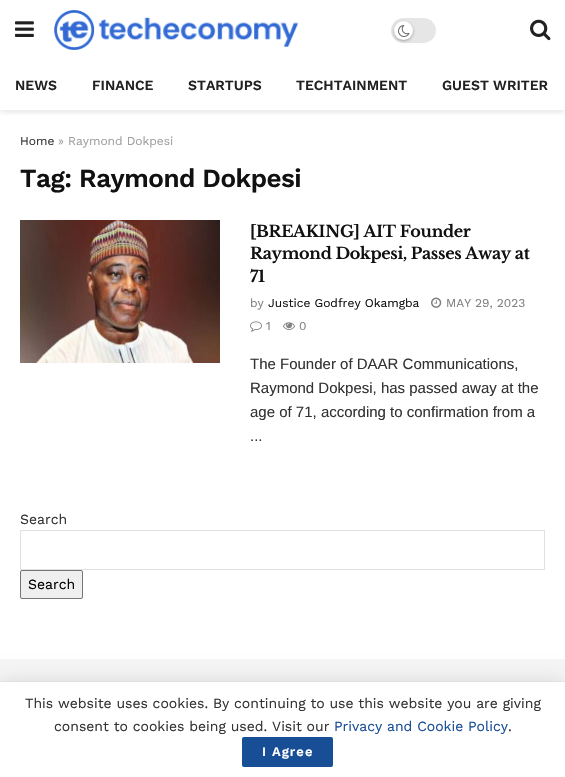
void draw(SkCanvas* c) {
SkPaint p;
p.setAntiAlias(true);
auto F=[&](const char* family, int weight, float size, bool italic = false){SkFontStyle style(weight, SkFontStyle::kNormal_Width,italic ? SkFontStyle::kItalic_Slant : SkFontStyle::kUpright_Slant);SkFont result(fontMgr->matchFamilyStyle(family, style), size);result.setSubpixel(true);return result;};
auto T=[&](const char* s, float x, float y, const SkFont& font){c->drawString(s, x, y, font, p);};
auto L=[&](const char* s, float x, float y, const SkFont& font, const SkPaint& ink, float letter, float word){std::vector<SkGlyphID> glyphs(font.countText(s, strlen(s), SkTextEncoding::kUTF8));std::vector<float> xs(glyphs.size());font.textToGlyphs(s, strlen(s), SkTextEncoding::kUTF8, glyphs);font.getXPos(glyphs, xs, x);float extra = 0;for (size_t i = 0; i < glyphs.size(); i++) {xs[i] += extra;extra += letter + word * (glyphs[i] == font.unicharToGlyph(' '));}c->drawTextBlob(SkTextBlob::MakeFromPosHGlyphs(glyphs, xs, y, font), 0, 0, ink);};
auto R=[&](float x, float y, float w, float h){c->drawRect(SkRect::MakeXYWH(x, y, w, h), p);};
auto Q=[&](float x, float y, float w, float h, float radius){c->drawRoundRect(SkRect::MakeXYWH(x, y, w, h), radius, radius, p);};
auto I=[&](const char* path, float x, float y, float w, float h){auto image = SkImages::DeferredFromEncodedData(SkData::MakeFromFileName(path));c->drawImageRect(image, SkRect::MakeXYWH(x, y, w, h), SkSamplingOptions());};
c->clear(0xffffffff);
c->save();
c->clipRect(SkRect::MakeXYWH(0,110,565,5));
p.setColor(0x1a000000);
p.setMaskFilter(SkMaskFilter::MakeBlur(kNormal_SkBlurStyle, 3));
c->drawRect(SkRect::MakeXYWH(0,2,565,110),p);
p.setMaskFilter(nullptr);
c->restore();
I("1.png",15,21,19,16);
I("2.png",54,10,244,40);
p.setColor(0xffe6e6e6);
Q(391,18,45,25,12.5);
p.setColor(0x4d000000);
p.setMaskFilter(SkMaskFilter::MakeBlur(kNormal_SkBlurStyle, 1.5));
c->drawRoundRect(SkRect::MakeXYWH(394,22,19,19),9.5,9.5,p);
p.setMaskFilter(nullptr);
p.setColor(0xffffffff);
c->drawCircle(403.5,30.5,9.5,p);
I("3.png",398,25,12,12);
I("4.png",530,19,21,22);
auto f1 = F("Work Sans",600,14);
p.setColor(0xff212121);
T("NEWS",15,90,f1);
T("FINANCE",92,90,f1);
T("STARTUPS",188,90,f1);
T("TECHTAINMENT",296,90,f1);
T("GUEST WRITER",442,90,f1);
auto f2 = F("Work Sans",400,12);
p.setColor(0xff333333);
T("Home",20,145,f2);
p.setColor(0xffa0a0a0);
T("» Raymond Dokpesi",58,145,f2);
auto f3 = F("Work Sans",600,26);
p.setColor(0xff111111);
L("Tag: Raymond Dokpesi",20,187,f3,p,-.5,0);
I("5.png",20,220,200,143);
auto f4 = F("Libre Baskerville",700,16);
L("[BREAKING] AIT Founder",250,237,f4,p,-.3,0);
L("Raymond Dokpesi, Passes Away at",250,259,f4,p,-.3,0);
L("71",250,282,f4,p,-.3,0);
p.setColor(0xff808080);
T("by",250,307,f2);
p.setColor(0xff111111);
T("Justice Godfrey Okamgba",268,307,f2);
I("6.png",431,297,11,11);
p.setColor(0xff808080);
T("MAY 29, 2023",446,307,f2);
I("7.png",250,321,12,11);
T("1",266,330,f2);
I("8.png",283,322,12,8);
T("0",299,330,f2);
auto f5 = F("Liberation Sans",400,15);
p.setColor(0xff333333);
T("The Founder of DAAR Communications,",250,369,f5);
T("Raymond Dokpesi, has passed away at the",250,393,f5);
T("age of 71, according to confirmation from a",250,417,f5);
T("...",250,441,f5);
auto f6 = F("Work Sans",400,14);
T("Search",20,524,f6);
p.setStroke(true);
p.setStrokeWidth(1);
p.setColor(0xffe0e0e0);
c->drawRect(SkRect::MakeXYWH(20.5,530.5,524,39),p);
p.setStroke(false);
p.setColor(0xffefefef);
c->drawRoundRect(SkRect::MakeXYWH(20.5,570.5,62,28),1.5,1.5,p);
p.setStroke(true);
p.setColor(0xff767676);
c->drawRoundRect(SkRect::MakeXYWH(20.5,570.5,62,28),1.5,1.5,p);
p.setStroke(false);
p.setColor(0xff000000);
T("Search",28,589,f6);
p.setColor(0xfff5f5f5);
R(0,659,565,23);
p.setColor(0x26000000);
p.setMaskFilter(SkMaskFilter::MakeBlur(kNormal_SkBlurStyle, 10));
c->drawRect(SkRect::MakeXYWH(0,684,565,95),p);
p.setMaskFilter(nullptr);
p.setColor(0x33000000);
p.setMaskFilter(SkMaskFilter::MakeBlur(kNormal_SkBlurStyle, .5));
c->drawRect(SkRect::MakeXYWH(0,682,565,95),p);
p.setMaskFilter(nullptr);
p.setColor(0xffffffff);
R(0,682,565,95);
p.setColor(0xff333333);
T("This website uses cookies. By continuing to use this website you are giving",25,708,f6);
T("consent to cookies being used. Visit our",54,731,f6);
p.setColor(0xff174e96);
T("Privacy and Cookie Policy",334,731,f6);
p.setColor(0xff333333);
T(".",508,731,f6);
p.setColor(0xff174e96);
Q(242,737,91,30,2);
auto f7 = F("Work Sans",600,13);
p.setColor(0xffffffff);
L("I Agree",262,756,f7,p,1,0);
}
